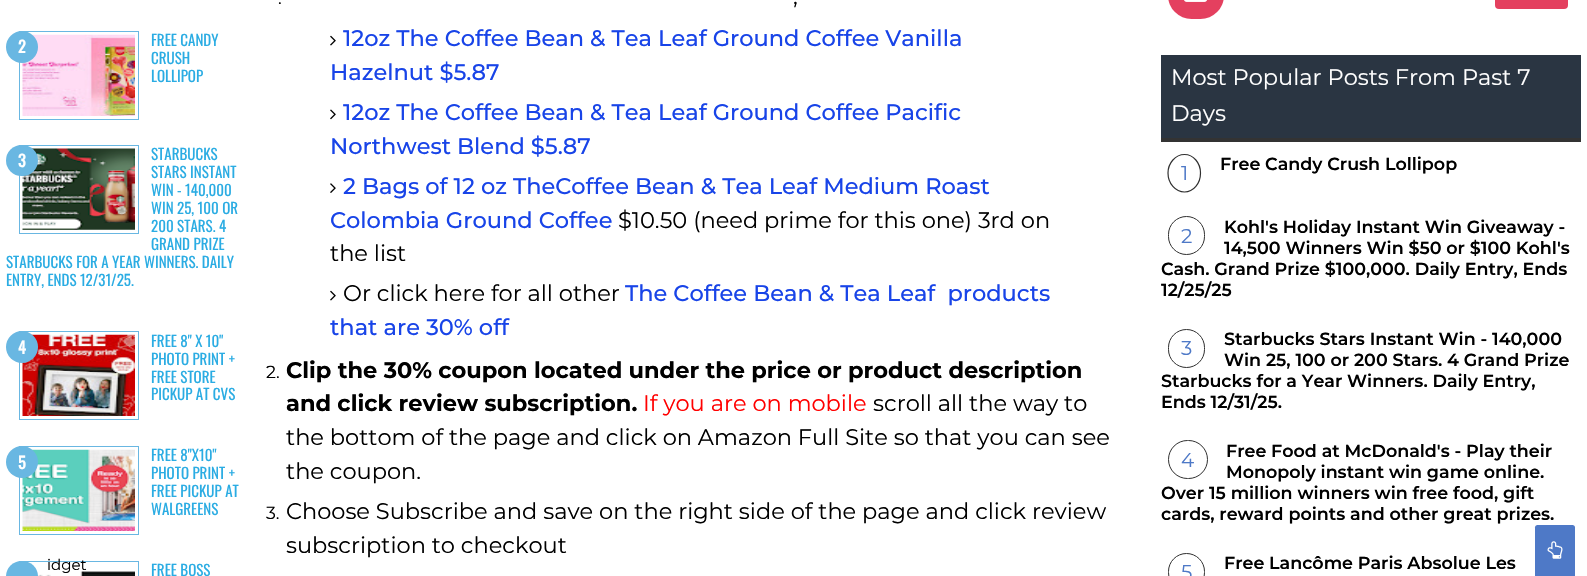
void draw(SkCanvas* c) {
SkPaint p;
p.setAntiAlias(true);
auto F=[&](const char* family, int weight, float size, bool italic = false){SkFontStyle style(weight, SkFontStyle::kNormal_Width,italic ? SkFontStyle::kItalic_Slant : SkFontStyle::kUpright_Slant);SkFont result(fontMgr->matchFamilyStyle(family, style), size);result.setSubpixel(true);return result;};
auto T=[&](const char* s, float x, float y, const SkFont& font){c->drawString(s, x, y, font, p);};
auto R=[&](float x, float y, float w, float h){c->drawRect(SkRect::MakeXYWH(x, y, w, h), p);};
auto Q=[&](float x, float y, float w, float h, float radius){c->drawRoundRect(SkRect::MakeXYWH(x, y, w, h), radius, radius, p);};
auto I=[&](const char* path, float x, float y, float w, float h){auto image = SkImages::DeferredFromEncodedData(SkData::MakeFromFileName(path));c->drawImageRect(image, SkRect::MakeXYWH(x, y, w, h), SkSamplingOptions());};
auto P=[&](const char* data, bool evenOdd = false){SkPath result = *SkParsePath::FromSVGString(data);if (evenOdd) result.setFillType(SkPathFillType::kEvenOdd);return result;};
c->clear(0xffffffff);
auto f1 = F("Montserrat",400,17.5);
p.setColor(0xff000000);
T(".",278,4,f1);
auto f2 = F("Montserrat",400,22.5);
T(",",793,4,f2);
I("1.png",330,35,6,11);
auto f3 = F("Montserrat",500,22.5);
p.setColor(0xff1844e8);
T("12oz The Coffee Bean & Tea Leaf Ground Coffee Vanilla",343,46,f3);
T("Hazelnut $5.87",330,80,f3);
I("2.png",330,109,6,11);
T("12oz The Coffee Bean & Tea Leaf Ground Coffee Pacific",343,120,f3);
T("Northwest Blend $5.87",330,154,f3);
I("3.png",330,183,6,10);
T("2 Bags of 12 oz TheCoffee Bean & Tea Leaf Medium Roast",343,194,f3);
T("Colombia Ground Coffee",330,228,f3);
p.setColor(0xff000000);
T("$10.50 (need prime for this one) 3rd on",618,228,f2);
T("the list",330,261,f2);
I("1.png",330,290,6,11);
T("Or click here for all other",343,301,f2);
p.setColor(0xff1844e8);
T("The Coffee Bean & Tea Leaf  products",625,301,f3);
T("that are 30% off",330,335,f3);
p.setColor(0xff000000);
T("2.",266,378,f1);
auto f4 = F("Montserrat",700,22.5);
T("Clip the 30% coupon located under the price or product description",286,378,f4);
T("and click review subscription.",286,411,f4);
p.setColor(0xffff0000);
T("If you are on mobile",643,411,f2);
p.setColor(0xff000000);
T("scroll all the way to",873,411,f2);
T("the bottom of the page and click on Amazon Full Site so that you can see",286,445,f2);
T("the coupon.",286,479,f2);
T("3.",266,519,f1);
T("Choose Subscribe and save on the right side of the page and click review",286,519,f2);
T("subscription to checkout",286,553,f2);
p.setStroke(true);
p.setStrokeWidth(1);
p.setColor(0xff69b7e2);
c->drawRect(SkRect::MakeXYWH(19.5,561.5,119,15),p);
I("8.png",36,571,99,5);
auto f5 = F("Montserrat",400,15);
p.setStroke(false);
p.setColor(0xff000000);
T("idget",47,570,f5);
p.setStroke(true);
p.setColor(0xff69b7e2);
c->drawRect(SkRect::MakeXYWH(19.5,31.5,119,88),p);
I("4.png",22,34,113,82);
auto f6 = F("Oswald",400,15);
p.setStroke(false);
p.setColor(0xff2aace3);
T("FREE CANDY",151,46,f6);
T("CRUSH",151,64,f6);
T("LOLLIPOP",151,82,f6);
p.setColor(0xff69b7e2);
c->drawCircle(22,47,16,p);
auto f7 = F("Oswald",700,16);
p.setColor(0xffffffff);
T("2",18,53,f7);
p.setStroke(true);
p.setColor(0xff69b7e2);
c->drawRect(SkRect::MakeXYWH(19.5,145.5,119,88),p);
I("5.png",22,148,113,82);
p.setStroke(false);
p.setColor(0xff2aace3);
T("STARBUCKS",151,160,f6);
T("STARS INSTANT",151,178,f6);
T("WIN - 140,000",151,196,f6);
T("WIN 25, 100 OR",151,214,f6);
T("200 STARS. 4",151,232,f6);
T("GRAND PRIZE",151,250,f6);
T("STARBUCKS FOR A YEAR WINNERS. DAILY",6,268,f6);
T("ENTRY, ENDS 12/31/25.",6,286,f6);
p.setColor(0xff69b7e2);
Q(6,145,32,31,15.5);
p.setColor(0xffffffff);
T("3",18,167,f7);
p.setStroke(true);
p.setColor(0xff69b7e2);
c->drawRect(SkRect::MakeXYWH(19.5,331.5,119,88),p);
I("6.png",22,334,113,82);
p.setStroke(false);
p.setColor(0xff2aace3);
T("FREE 8\" X 10\"",151,347,f6);
T("PHOTO PRINT +",151,365,f6);
T("FREE STORE",151,383,f6);
T("PICKUP AT CVS",151,400,f6);
p.setColor(0xff69b7e2);
c->drawCircle(22,347,16,p);
p.setColor(0xffffffff);
T("4",18,354,f7);
p.setStroke(true);
p.setColor(0xff69b7e2);
c->drawRect(SkRect::MakeXYWH(19.5,446.5,119,88),p);
I("7.png",22,449,113,82);
p.setStroke(false);
p.setColor(0xff2aace3);
T("FREE 8\"X10\"",151,461,f6);
T("PHOTO PRINT +",151,479,f6);
T("FREE PICKUP AT",151,497,f6);
T("WALGREENS",151,515,f6);
p.setColor(0xff69b7e2);
c->drawCircle(22,462,16,p);
p.setColor(0xffffffff);
T("5",18,469,f7);
p.setColor(0xff69b7e2);
Q(6,561,32,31,16);
p.setColor(0xff2aace3);
T("FREE BOSS",151,576,f6);
p.setColor(0xffe4405f);
Q(1168,-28,56,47,28);
I("9.png",1184,0,23,2);
Q(1495,-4,73,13,4);
p.setColor(0xff2a3542);
R(1161,55,420,83);
p.setColor(0xff333333);
R(1161,138,420,4);
p.setColor(0xffffffff);
T("Most Popular Posts From Past 7",1171,85,f2);
T("Days",1171,121,f2);
p.setStroke(true);
p.setStrokeWidth(1.2);
p.setColor(0xff2f2f2f);
c->drawPath(P("M1184.5 154.5c9 0 16 8.5 16 18.5c0 10.5-7 19-16 19c-9 0-16.5-8.5-16.5-19c0-10 7.5-18.5 16.5-18.5z"),p);
auto f8 = F("Montserrat",400,20);
p.setStroke(false);
p.setColor(0xff4e79c7);
T("1",1181,180,f8);
auto f9 = F("Montserrat",600,17.5);
p.setColor(0xff000000);
T("Free Candy Crush Lollipop",1220,170,f9);
T("Kohl's Holiday Instant Win Giveaway -",1224,233,f9);
T("14,500 Winners Win $50 or $100 Kohl's",1224,254,f9);
T("Cash. Grand Prize $100,000. Daily Entry, Ends",1161,275,f9);
T("12/25/25",1161,296,f9);
p.setStroke(true);
p.setStrokeWidth(1);
p.setColor(0xff2f2f2f);
c->drawRoundRect(SkRect::MakeXYWH(1168.5,216.5,36,38),18,18,p);
p.setStroke(false);
p.setColor(0xff4e79c7);
T("2",1181,243,f8);
p.setColor(0xff000000);
T("Starbucks Stars Instant Win - 140,000",1224,345,f9);
T("Win 25, 100 or 200 Stars. 4 Grand Prize",1224,366,f9);
T("Starbucks for a Year Winners. Daily Entry,",1161,387,f9);
T("Ends 12/31/25.",1161,408,f9);
p.setStroke(true);
p.setColor(0xff2f2f2f);
c->drawRoundRect(SkRect::MakeXYWH(1168.5,329.5,36,38),18,18,p);
p.setStroke(false);
p.setColor(0xff4e79c7);
T("3",1181,355,f8);
p.setColor(0xff000000);
T("Free Food at McDonald's - Play their",1226,457,f9);
T("Monopoly instant win game online.",1226,478,f9);
T("Over 15 million winners win free food, gift",1161,499,f9);
T("cards, reward points and other great prizes.",1161,520,f9);
p.setStroke(true);
p.setColor(0xff2f2f2f);
c->drawRoundRect(SkRect::MakeXYWH(1168.5,440.5,39,38),19,19,p);
p.setStroke(false);
p.setColor(0xff4e79c7);
T("4",1181,467,f8);
p.setStroke(true);
p.setColor(0xff2f2f2f);
c->drawRoundRect(SkRect::MakeXYWH(1168.5,553.5,36,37),18,18,p);
p.setStroke(false);
p.setColor(0xff4e79c7);
T("5",1181,579,f8);
p.setColor(0xff000000);
T("Free Lancôme Paris Absolue Les",1224,569,f9);
p.setColor(0xff4e79c7);
c->drawPath(P("M1537.5 525h35c1.5 0 2.5 1 2.5 2.5v48.5h-40v-48.5c0-1.5 1-2.5 2.5-2.5z"),p);
I("10.png",1547,541,16,18);
}
